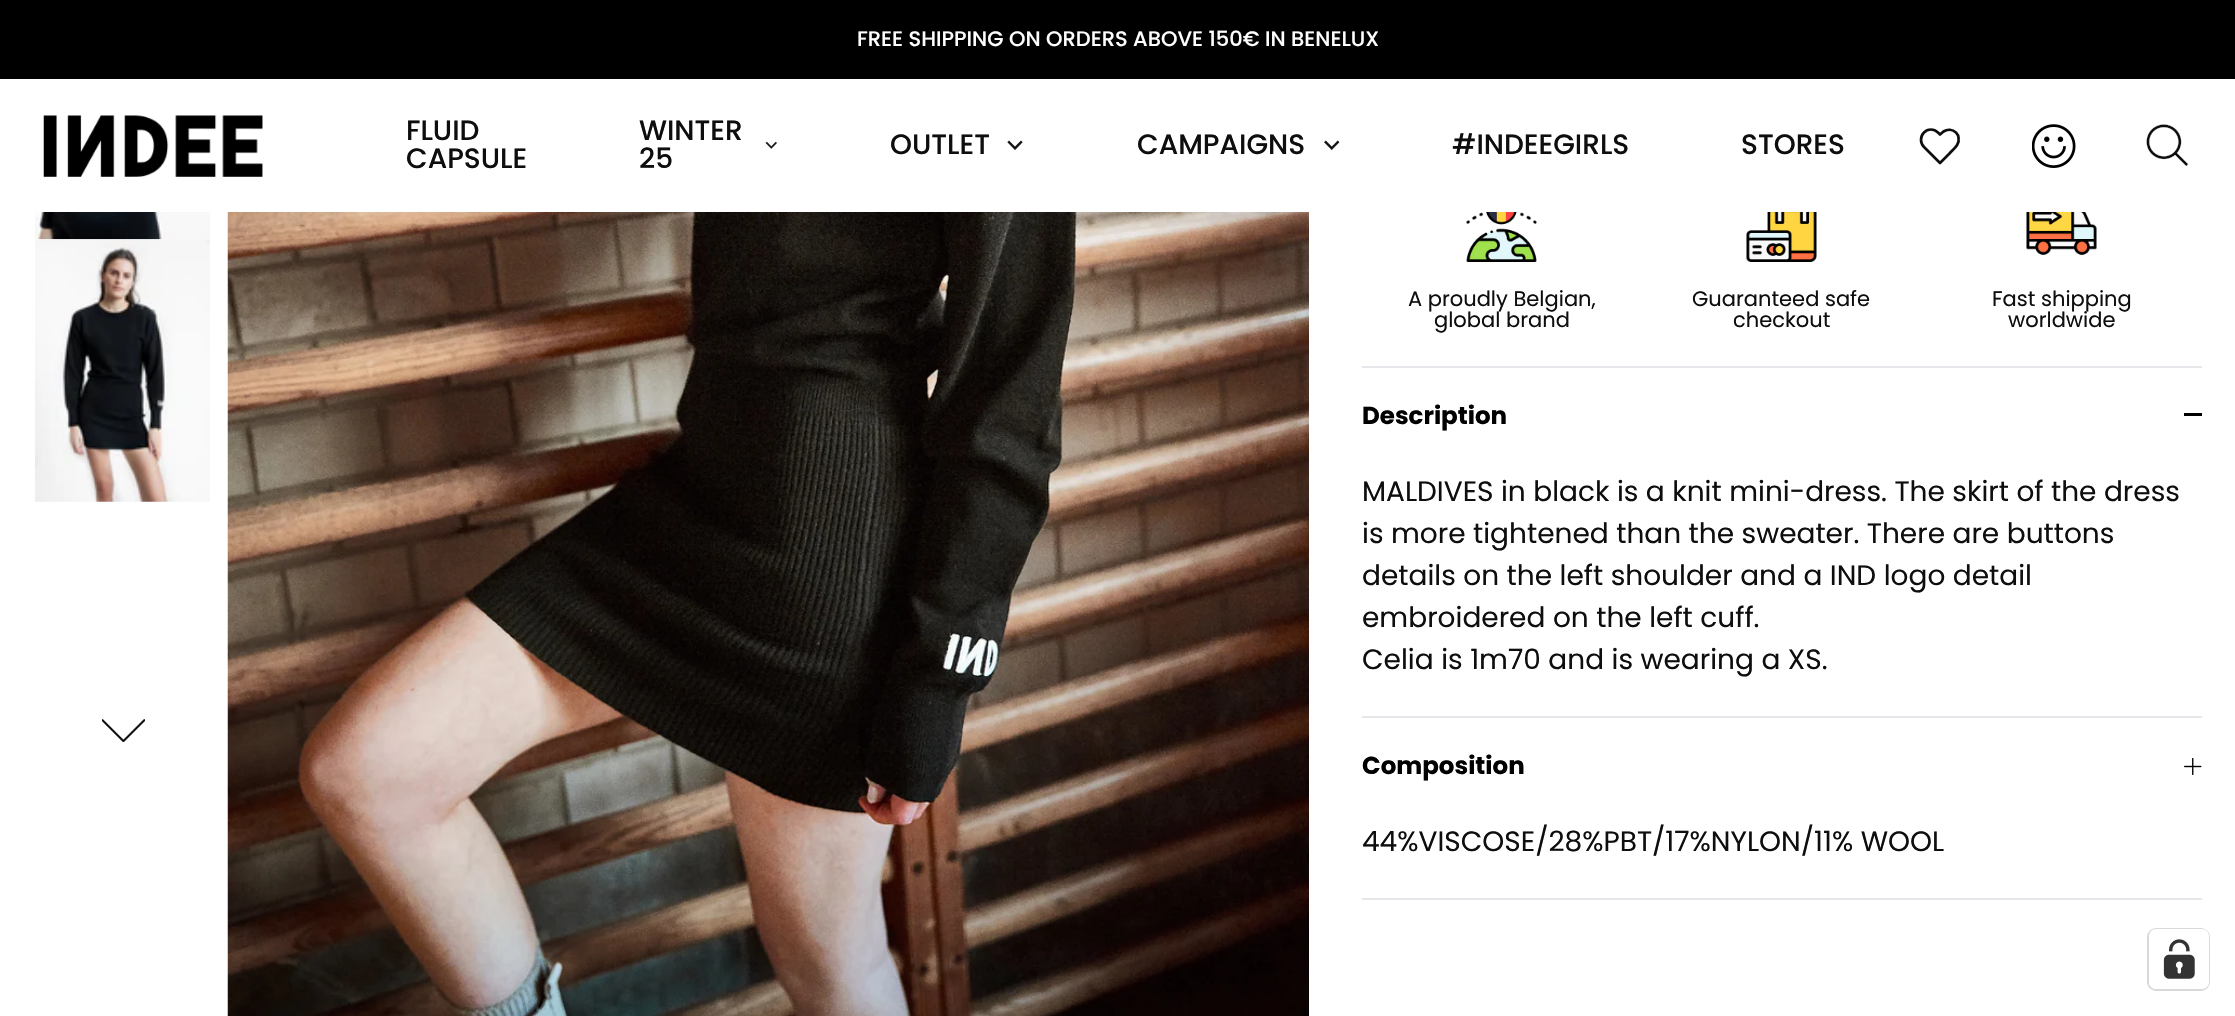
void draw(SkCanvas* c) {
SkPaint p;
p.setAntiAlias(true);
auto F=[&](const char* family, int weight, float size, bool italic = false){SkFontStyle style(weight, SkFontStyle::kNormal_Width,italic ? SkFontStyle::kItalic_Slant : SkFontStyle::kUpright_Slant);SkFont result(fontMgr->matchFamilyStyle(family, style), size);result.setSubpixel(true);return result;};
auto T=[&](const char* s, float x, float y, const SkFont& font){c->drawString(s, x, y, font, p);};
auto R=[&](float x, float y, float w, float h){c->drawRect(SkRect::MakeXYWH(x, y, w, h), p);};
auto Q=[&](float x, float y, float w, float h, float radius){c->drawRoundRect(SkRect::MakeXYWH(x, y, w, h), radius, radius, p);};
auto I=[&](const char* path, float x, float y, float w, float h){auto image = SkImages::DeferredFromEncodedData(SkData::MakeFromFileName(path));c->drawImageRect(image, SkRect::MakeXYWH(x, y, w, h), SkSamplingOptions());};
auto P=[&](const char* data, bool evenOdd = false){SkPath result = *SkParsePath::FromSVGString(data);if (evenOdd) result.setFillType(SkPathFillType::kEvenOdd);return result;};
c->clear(0xffffffff);
p.setColor(0xff000000);
R(0,0,2235,79);
auto f1 = F("Poppins",500,21);
p.setColor(0xffffffff);
T("FREE SHIPPING ON ORDERS ABOVE 150€ IN BENELUX",857,46,f1);
I("1.png",43,115,220,62);
auto f2 = F("Poppins",500,28);
p.setColor(0xff0e0e0e);
T("FLUID",406,140,f2);
T("CAPSULE",406,168,f2);
T("WINTER",639,140,f2);
T("25",639,168,f2);
I("2.png",765,141,12,8);
T("OUTLET",890,154,f2);
I("3.png",1007,140,16,10);
T("CAMPAIGNS",1137,154,f2);
I("4.png",1324,140,16,10);
T("#INDEEGIRLS",1452,154,f2);
T("STORES",1741,154,f2);
p.setStroke(true);
p.setStrokeWidth(2.7);
p.setStrokeCap(SkPaint::kRound_Cap);
p.setStrokeJoin(SkPaint::kRound_Join);
c->drawPath(P("M1956 132.5c-3.5-3-8.5-3.5-12.5-1l-3.5 3l-2-2c-4-4-10.5-4-14 0c-4 4-4 10.5 0 14.5l16 16l9.5-9.5c4-4.5 10.5-9 9-15.5c0-2-1-4-2.5-5.5z"),p);
I("5.png",2032,124,44,44);
I("6.png",2146,124,43,43);
I("7.png",35,212,175,28);
I("8.png",35,239,175,263);
I("9.png",102,719,43,23);
I("10.png",227,212,1082,804);
I("11.png",1466,212,71,50);
auto f3 = F("Poppins",400,21);
p.setStroke(false);
T("A proudly Belgian,",1408,306,f3);
T("global brand",1434,327,f3);
I("12.png",1746,212,71,50);
T("Guaranteed safe",1692,306,f3);
T("checkout",1733,327,f3);
I("13.png",2026,212,71,43);
T("Fast shipping",1992,306,f3);
T("worldwide",2008,327,f3);
p.setColor(0xffe5e7eb);
R(1362,898,840,2);
R(1362,366,840,2);
auto f4 = F("Poppins",700,24.5);
p.setColor(0xff000000);
T("Description",1362,424,f4);
R(2184,413,18,3);
auto f5 = F("Poppins",400,28);
p.setColor(0xff0e0e0e);
T("MALDIVES in black is a knit mini-dress. The skirt of the dress",1362,501,f5);
T("is more tightened than the sweater. There are buttons",1362,543,f5);
T("details on the left shoulder and a IND logo detail",1362,585,f5);
T("embroidered on the left cuff.",1362,627,f5);
T("Celia is 1m70 and is wearing a XS.",1362,669,f5);
p.setColor(0xffe5e7eb);
R(1362,716,840,2);
p.setColor(0xff000000);
T("Composition",1362,774,f4);
I("14.png",2184,758,18,17);
p.setColor(0xff0e0e0e);
T("44%VISCOSE/28%PBT/17%NYLON/11% WOOL",1362,851,f5);
p.setStroke(true);
p.setStrokeWidth(2);
p.setStrokeCap(SkPaint::kButt_Cap);
p.setStrokeJoin(SkPaint::kMiter_Join);
p.setColor(0xffd9d9d9);
c->drawRoundRect(SkRect::MakeXYWH(2148,929,61,61),8,8,p);
p.setStroke(false);
p.setColor(0xffffffff);
Q(2149,929,60,60,7);
I("15.png",2163,939,32,40);
}
